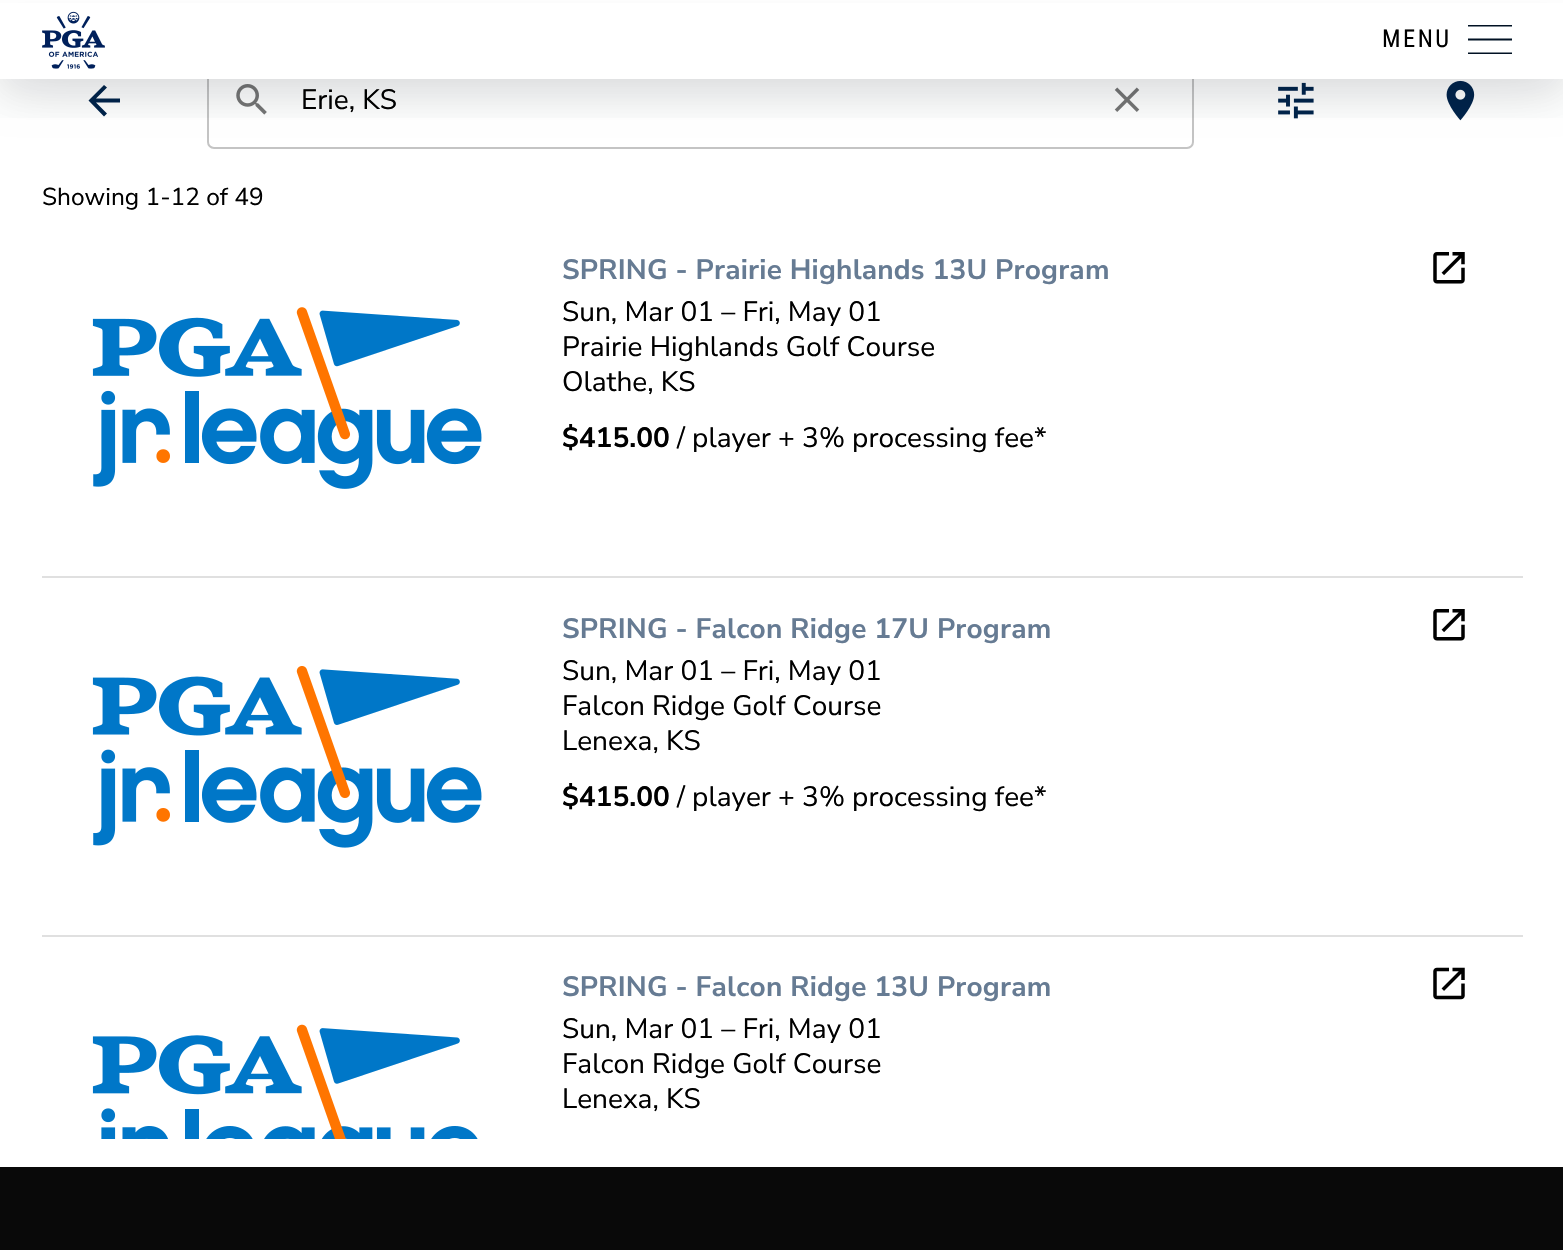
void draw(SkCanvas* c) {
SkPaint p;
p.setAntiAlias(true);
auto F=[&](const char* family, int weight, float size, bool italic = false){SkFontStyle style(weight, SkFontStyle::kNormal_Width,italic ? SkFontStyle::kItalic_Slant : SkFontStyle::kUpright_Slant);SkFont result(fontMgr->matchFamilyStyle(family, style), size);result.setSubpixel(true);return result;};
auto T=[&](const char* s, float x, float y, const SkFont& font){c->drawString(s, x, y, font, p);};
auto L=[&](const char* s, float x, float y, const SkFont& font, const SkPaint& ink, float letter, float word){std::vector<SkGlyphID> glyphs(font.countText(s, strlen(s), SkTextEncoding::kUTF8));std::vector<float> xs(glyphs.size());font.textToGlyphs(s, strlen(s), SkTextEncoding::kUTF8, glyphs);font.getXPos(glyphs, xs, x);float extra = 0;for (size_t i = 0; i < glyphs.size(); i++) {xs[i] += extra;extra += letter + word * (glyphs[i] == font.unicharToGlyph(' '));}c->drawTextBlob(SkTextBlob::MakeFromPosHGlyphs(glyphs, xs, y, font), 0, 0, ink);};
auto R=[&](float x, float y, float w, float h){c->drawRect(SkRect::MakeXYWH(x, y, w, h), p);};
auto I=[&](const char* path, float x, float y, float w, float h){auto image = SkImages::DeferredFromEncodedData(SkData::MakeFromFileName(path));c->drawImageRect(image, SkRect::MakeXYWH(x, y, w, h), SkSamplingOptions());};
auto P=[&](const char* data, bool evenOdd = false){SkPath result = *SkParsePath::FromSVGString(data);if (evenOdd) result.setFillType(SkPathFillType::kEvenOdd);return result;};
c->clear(0xffffffff);
p.setColor(0xff00234b);
c->drawPath(P("M120 98.5h-24l11-11l-3-2.5l-15.5 15.5l15.5 16l3-3l-11-11h24z"),p);
I("2.png",236,84,31,31);
I("3.png",1114,87,26,25);
p.setStroke(true);
p.setStrokeWidth(2);
p.setColor(0xffc4c4c4);
c->drawRoundRect(SkRect::MakeXYWH(208,43,985,105),6,6,p);
I("4.png",1278,82,36,37);
I("5.png",1446,80,29,41);
p.setStroke(false);
p.setColor(0x0d000000);
p.setMaskFilter(SkMaskFilter::MakeBlur(kNormal_SkBlurStyle, 17.5));
c->drawRect(SkRect::MakeXYWH(0,18,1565,78),p);
p.setMaskFilter(nullptr);
p.setColor(0xffffffff);
R(0,3,1563,76);
c->save();
c->clipRect(SkRect::MakeXYWH(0,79,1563,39));
p.setColor(0x21000a16);
p.setMaskFilter(SkMaskFilter::MakeBlur(kNormal_SkBlurStyle, 31.5));
c->drawRect(SkRect::MakeXYWH(0,7,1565,79),p);
p.setMaskFilter(nullptr);
c->restore();
I("1.png",42,11,63,58);
auto f1 = F("Roboto Condensed",400,24.5);
p.setColor(0xff000000);
L("MENU",1382,47,f1,p,2.5,0);
c->save();
c->clipRect(SkRect::MakeXYWH(1468,25,44,29));
p.setStroke(true);
p.setStrokeWidth(1.8);
p.setColor(0xff001123);
c->drawPath(P("M1468 39.5h44m-44 14h44m-44-28h44"),p);
c->restore();
auto f2 = F("Nunito Sans",400,28);
p.setStroke(false);
p.setColor(0xff000000);
T("Erie, KS",301,109,f2);
auto f3 = F("Nunito Sans",400,24.5);
T("Showing 1-12 of 49",42,205,f3);
p.setColor(0xffe0e0e0);
R(42,576,1481,2);
I("6.png",92,307,390,182);
auto f4 = F("Nunito Sans",700,28);
p.setColor(0xff667b93);
L("SPRING - Prairie Highlands 13U Program",562,279,f4,p,.2,0);
p.setColor(0xff000000);
T("Sun, Mar 01 – Fri, May 01",562,321,f2);
T("Prairie Highlands Golf Course",562,356,f2);
T("Olathe, KS",562,391,f2);
T("$415.00",562,447,f4);
T("/ player + 3% processing fee*",677,447,f2);
I("7.png",1433,252,32,32);
p.setColor(0xffe0e0e0);
R(42,935,1481,2);
I("8.png",92,666,390,182);
p.setColor(0xff667b93);
L("SPRING - Falcon Ridge 17U Program",562,638,f4,p,.2,0);
p.setColor(0xff000000);
T("Sun, Mar 01 – Fri, May 01",562,680,f2);
T("Falcon Ridge Golf Course",562,715,f2);
T("Lenexa, KS",562,750,f2);
T("$415.00",562,806,f4);
T("/ player + 3% processing fee*",677,806,f2);
I("7.png",1433,609,32,32);
I("9.png",92,1024,386,115);
p.setColor(0xff667b93);
L("SPRING - Falcon Ridge 13U Program",562,996,f4,p,.2,0);
p.setColor(0xff000000);
T("Sun, Mar 01 – Fri, May 01",562,1038,f2);
T("Falcon Ridge Golf Course",562,1073,f2);
T("Lenexa, KS",562,1108,f2);
I("10.png",1433,967,32,33);
p.setColor(0xff090909);
R(0,1167,1563,83);
}
